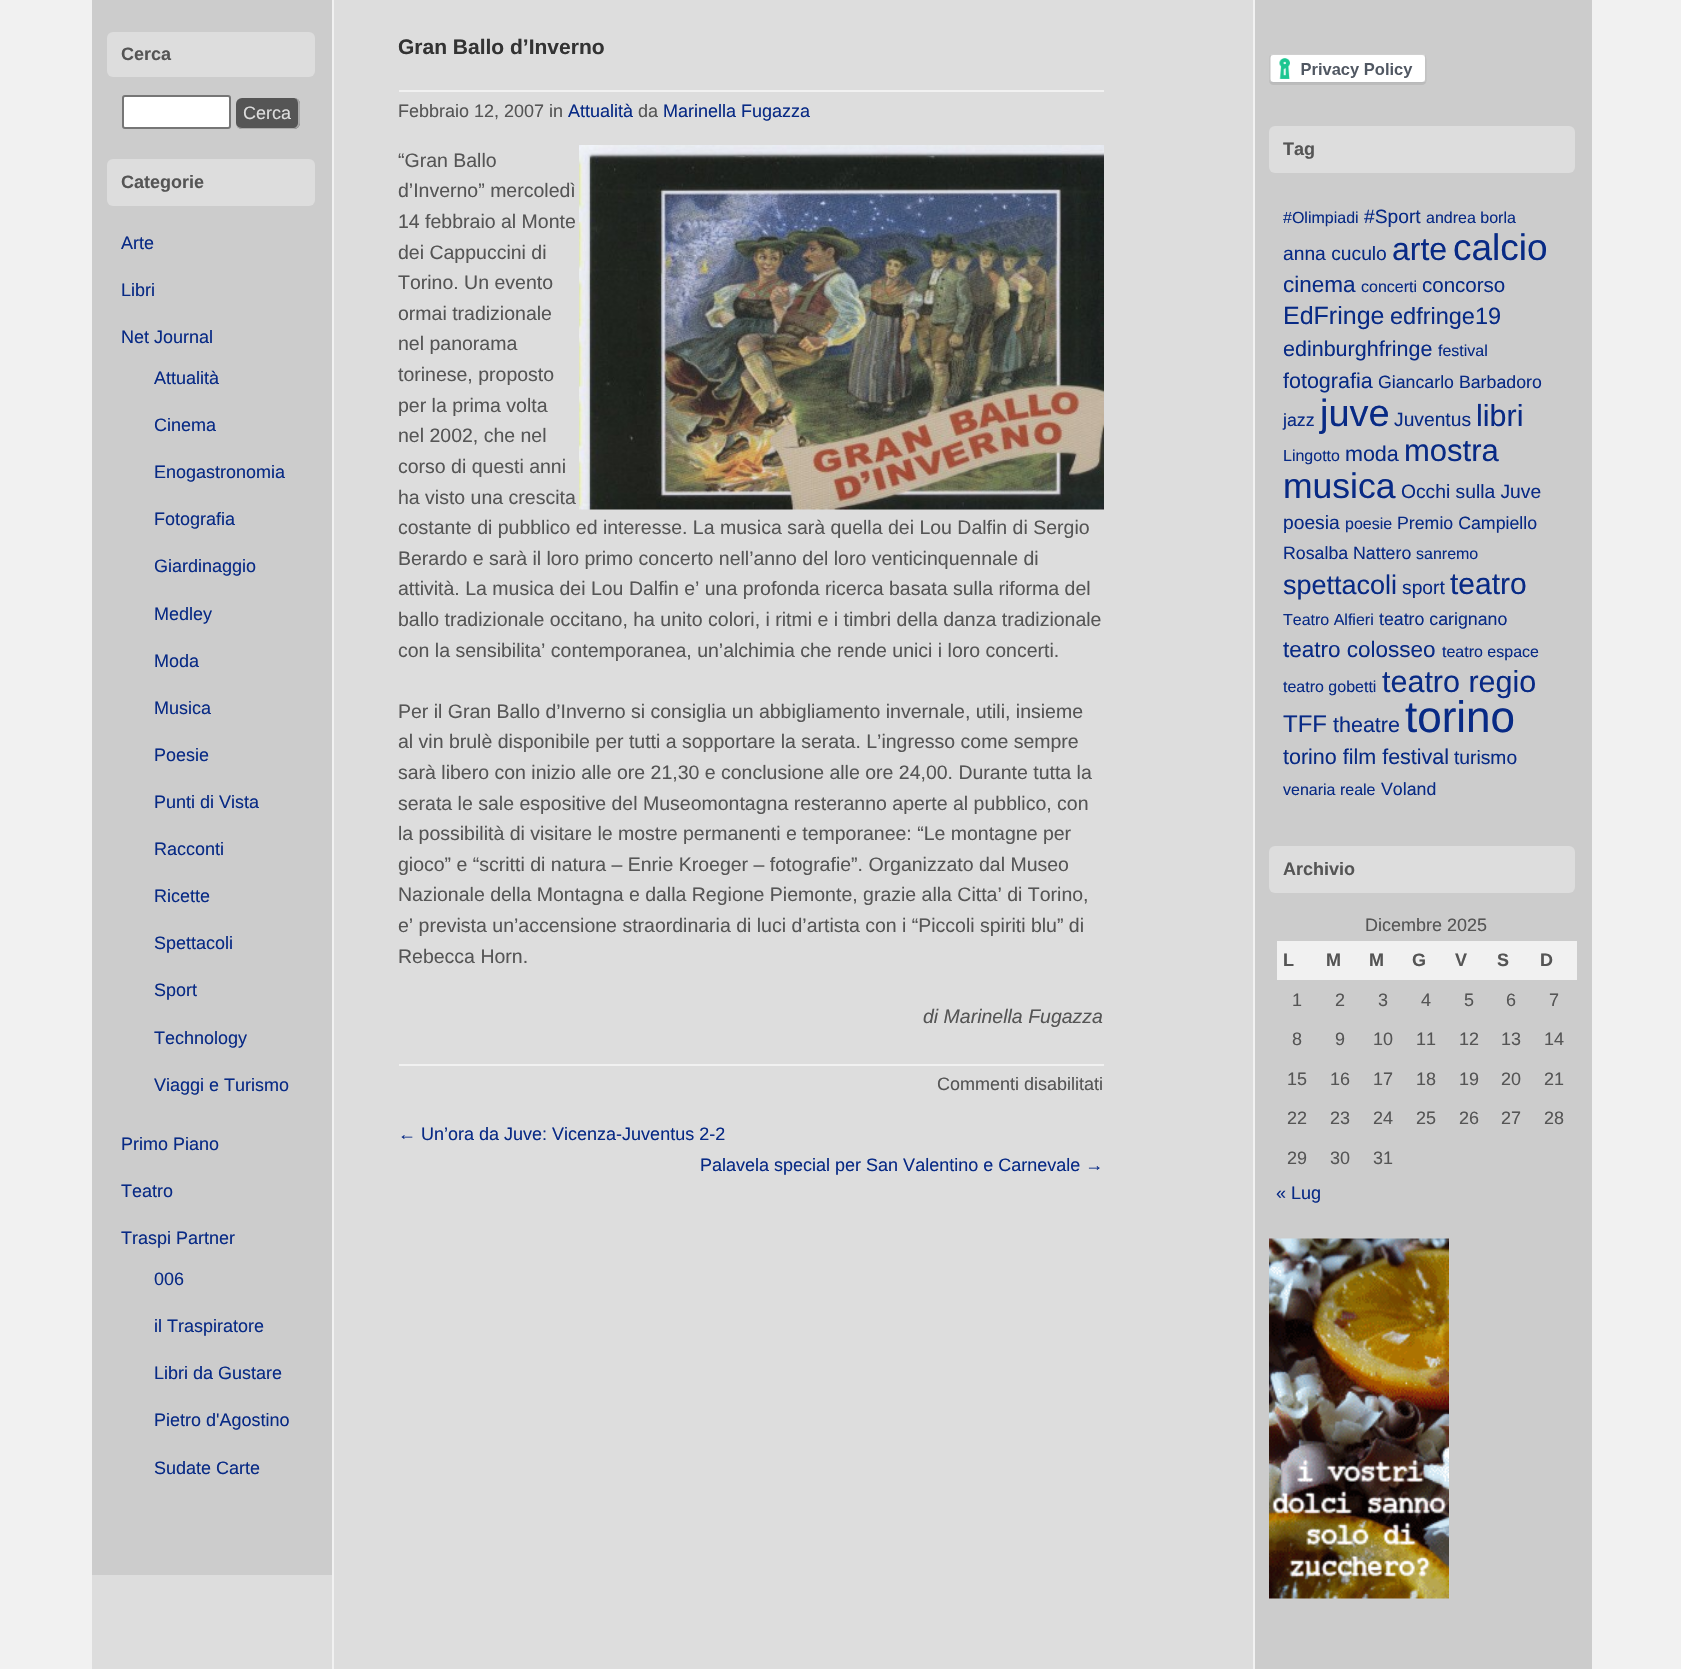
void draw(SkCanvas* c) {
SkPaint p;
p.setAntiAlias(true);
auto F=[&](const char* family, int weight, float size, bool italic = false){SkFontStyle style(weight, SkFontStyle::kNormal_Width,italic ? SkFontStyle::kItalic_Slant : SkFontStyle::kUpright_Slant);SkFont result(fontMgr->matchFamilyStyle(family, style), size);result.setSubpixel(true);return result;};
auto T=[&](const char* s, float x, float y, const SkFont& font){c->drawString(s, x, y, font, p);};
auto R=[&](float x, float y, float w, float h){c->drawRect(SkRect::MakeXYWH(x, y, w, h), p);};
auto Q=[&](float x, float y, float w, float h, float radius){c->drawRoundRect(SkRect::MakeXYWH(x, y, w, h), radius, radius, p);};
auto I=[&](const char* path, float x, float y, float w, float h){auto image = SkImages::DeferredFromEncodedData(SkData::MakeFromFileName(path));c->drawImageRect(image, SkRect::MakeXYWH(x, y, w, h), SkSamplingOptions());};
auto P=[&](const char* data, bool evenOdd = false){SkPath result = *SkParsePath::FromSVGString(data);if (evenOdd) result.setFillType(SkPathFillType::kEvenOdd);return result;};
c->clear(0xfff1f1f1);
p.setColor(0xffdddddd);
R(92,0,1161,1669);
p.setColor(0xffcccccc);
R(92,0,240,1575);
p.setColor(0xffdddddd);
Q(107,32,208,45,6);
auto f1 = F("Liberation Sans",700,18);
p.setColor(0xff555555);
T("Cerca",121,60,f1);
p.setColor(0xffffffff);
c->drawRoundRect(SkRect::MakeXYWH(123,96,107,32),2,2,p);
p.setStroke(true);
p.setStrokeWidth(2);
p.setColor(0xff767676);
c->drawRoundRect(SkRect::MakeXYWH(123,96,107,32),2,2,p);
p.setStroke(false);
p.setColor(0xff555555);
Q(236,98,64,31,6);
p.setColor(0xffaaaaaa);
c->drawPath(P("M242 98h52c3 0 6 2 6 6v19c0 3-3 6-6 6h-52c-4 0-6-3-6-6v-19c0-4 2-6 6-6zm0 0h52c2 0 4 2 4 6v19c0 2-2 5-4 5h-52c-4 0-6-3-6-5v-19c0-4 2-6 6-6z",true),p);
auto f2 = F("Liberation Sans",400,18);
p.setColor(0xffdddddd);
T("Cerca",243,119,f2);
Q(107,159,208,47,6);
p.setColor(0xff555555);
T("Categorie",121,188,f1);
p.setColor(0xff082a85);
T("Arte",121,249,f2);
T("Libri",121,296,f2);
T("Net Journal",121,343,f2);
T("Attualità",154,384,f2);
T("Cinema",154,431,f2);
T("Enogastronomia",154,478,f2);
T("Fotografia",154,525,f2);
T("Giardinaggio",154,572,f2);
T("Medley",154,620,f2);
T("Moda",154,667,f2);
T("Musica",154,714,f2);
T("Poesie",154,761,f2);
T("Punti di Vista",154,808,f2);
T("Racconti",154,855,f2);
T("Ricette",154,902,f2);
T("Spettacoli",154,949,f2);
T("Sport",154,996,f2);
T("Technology",154,1044,f2);
T("Viaggi e Turismo",154,1091,f2);
T("Primo Piano",121,1150,f2);
T("Teatro",121,1197,f2);
T("Traspi Partner",121,1244,f2);
T("006",154,1285,f2);
T("il Traspiratore",154,1332,f2);
T("Libri da Gustare",154,1379,f2);
T("Pietro d'Agostino",154,1426,f2);
T("Sudate Carte",154,1474,f2);
p.setColor(0xfff1f1f1);
R(332,0,2,1669);
auto f3 = F("Liberation Sans",700,21);
p.setColor(0xff333333);
T("Gran Ballo d’Inverno",398,54,f3);
p.setColor(0xfff1f1f1);
R(399,90,705,2);
p.setColor(0xff555555);
T("Febbraio 12, 2007 in",398,117,f2);
p.setColor(0xff082a85);
T("Attualità",568,117,f2);
p.setColor(0xff555555);
T("da",638,117,f2);
p.setColor(0xff082a85);
T("Marinella Fugazza",663,117,f2);
auto f4 = F("Liberation Sans",400,19.5);
p.setColor(0xff555555);
T("“Gran Ballo",398,167,f4);
I("1.png",579,145,525,365);
T("d’Inverno” mercoledì",398,197,f4);
T("14 febbraio al Monte",398,228,f4);
T("dei Cappuccini di",398,259,f4);
T("Torino. Un evento",398,289,f4);
T("ormai tradizionale",398,320,f4);
T("nel panorama",398,350,f4);
T("torinese, proposto",398,381,f4);
T("per la prima volta",398,412,f4);
T("nel 2002, che nel",398,442,f4);
T("corso di questi anni",398,473,f4);
T("ha visto una crescita",398,504,f4);
T("costante di pubblico ed interesse. La musica sarà quella dei Lou Dalfin di Sergio",398,534,f4);
T("Berardo e sarà il loro primo concerto nell’anno del loro venticinquennale di",398,565,f4);
T("attività. La musica dei Lou Dalfin e’ una profonda ricerca basata sulla riforma del",398,595,f4);
T("ballo tradizionale occitano, ha unito colori, i ritmi e i timbri della danza tradizionale",398,626,f4);
T("con la sensibilita’ contemporanea, un’alchimia che rende unici i loro concerti.",398,657,f4);
T("Per il Gran Ballo d’Inverno si consiglia un abbigliamento invernale, utili, insieme",398,718,f4);
T("al vin brulè disponibile per tutti a sopportare la serata. L’ingresso come sempre",398,748,f4);
T("sarà libero con inizio alle ore 21,30 e conclusione alle ore 24,00. Durante tutta la",398,779,f4);
T("serata le sale espositive del Museomontagna resteranno aperte al pubblico, con",398,810,f4);
T("la possibilità di visitare le mostre permanenti e temporanee: “Le montagne per",398,840,f4);
T("gioco” e “scritti di natura – Enrie Kroeger – fotografie”. Organizzato dal Museo",398,871,f4);
T("Nazionale della Montagna e dalla Regione Piemonte, grazie alla Citta’ di Torino,",398,901,f4);
T("e’ prevista un’accensione straordinaria di luci d’artista con i “Piccoli spiriti blu” di",398,932,f4);
T("Rebecca Horn.",398,963,f4);
auto f5 = F("Liberation Sans",400,19.5,true);
T("di Marinella Fugazza",923,1023,f5);
p.setColor(0xfff1f1f1);
R(399,1064,705,2);
p.setColor(0xff555555);
T("Commenti disabilitati",937,1090,f2);
p.setColor(0xff082a85);
T("← Un’ora da Juve: Vicenza-Juventus 2-2",398,1140,f2);
T("Palavela special per San Valentino e Carnevale →",700,1171,f2);
p.setColor(0xffcccccc);
R(1255,0,337,1669);
I("2.png",1269,54,158,31);
p.setColor(0xffdddddd);
Q(1269,126,306,47,6);
p.setColor(0xff555555);
T("Tag",1283,155,f1);
auto f6 = F("Liberation Sans",400,16);
p.setColor(0xff082a85);
T("#Olimpiadi",1283,223,f6);
auto f7 = F("Liberation Sans",400,19.25);
T("#Sport",1364,223,f7);
T("andrea borla",1426,223,f6);
T("anna cuculo",1283,260,f7);
auto f8 = F("Liberation Sans",400,32);
T("arte",1392,260,f8);
auto f9 = F("Liberation Sans",400,37);
T("calcio",1453,260,f9);
auto f10 = F("Liberation Sans",400,22.5);
T("cinema",1283,292,f10);
T("concerti",1361,292,f6);
auto f11 = F("Liberation Sans",400,20.5);
T("concorso",1422,292,f11);
auto f12 = F("Liberation Sans",400,25);
T("EdFringe",1283,324,f12);
auto f13 = F("Liberation Sans",400,23.5);
T("edfringe19",1390,324,f13);
auto f14 = F("Liberation Sans",400,21.5);
T("edinburghfringe",1283,356,f14);
T("festival",1438,356,f6);
T("fotografia",1283,388,f14);
auto f15 = F("Liberation Sans",400,17.75);
T("Giancarlo Barbadoro",1378,388,f15);
T("jazz",1283,426,f15);
auto f16 = F("Liberation Sans",400,38);
T("juve",1320,426,f16);
T("Juventus",1394,426,f7);
auto f17 = F("Liberation Sans",400,30.5);
T("libri",1476,426,f17);
T("Lingotto",1283,461,f6);
T("moda",1345,461,f14);
auto f18 = F("Liberation Sans",400,31);
T("mostra",1404,461,f18);
auto f19 = F("Liberation Sans",400,35.5);
T("musica",1283,498,f19);
T("Occhi sulla Juve",1401,498,f7);
T("poesia",1283,529,f7);
T("poesie",1345,529,f6);
T("Premio Campiello",1397,529,f15);
T("Rosalba Nattero",1283,559,f15);
T("sanremo",1416,559,f6);
auto f20 = F("Liberation Sans",400,27);
T("spettacoli",1283,594,f20);
T("sport",1402,594,f7);
auto f21 = F("Liberation Sans",400,30);
T("teatro",1450,594,f21);
T("Teatro Alfieri",1283,625,f6);
T("teatro carignano",1379,625,f15);
T("teatro colosseo",1283,657,f10);
T("teatro espace",1442,657,f6);
T("teatro gobetti",1283,692,f6);
T("teatro regio",1382,692,f17);
auto f22 = F("Liberation Sans",400,24);
T("TFF",1283,732,f22);
T("theatre",1333,732,f14);
auto f23 = F("Liberation Sans",400,44);
T("torino",1405,732,f23);
T("torino film festival",1283,764,f14);
T("turismo",1454,764,f7);
T("venaria reale",1283,795,f6);
T("Voland",1381,795,f15);
p.setColor(0xffdddddd);
Q(1269,846,306,47,6);
p.setColor(0xff555555);
T("Archivio",1283,875,f1);
T("Dicembre 2025",1365,931,f2);
p.setColor(0xfff1f1f1);
R(1277,941,300,39);
p.setColor(0xff555555);
T("L",1283,966,f1);
T("M",1326,966,f1);
T("M",1369,966,f1);
T("G",1412,966,f1);
T("V",1455,966,f1);
T("S",1497,966,f1);
T("D",1540,966,f1);
T("1",1292,1006,f2);
T("2",1335,1006,f2);
T("3",1378,1006,f2);
T("4",1421,1006,f2);
T("5",1464,1006,f2);
T("6",1506,1006,f2);
T("7",1549,1006,f2);
T("8",1292,1045,f2);
T("9",1335,1045,f2);
T("10",1373,1045,f2);
T("11",1416,1045,f2);
T("12",1459,1045,f2);
T("13",1501,1045,f2);
T("14",1544,1045,f2);
T("15",1287,1085,f2);
T("16",1330,1085,f2);
T("17",1373,1085,f2);
T("18",1416,1085,f2);
T("19",1459,1085,f2);
T("20",1501,1085,f2);
T("21",1544,1085,f2);
T("22",1287,1124,f2);
T("23",1330,1124,f2);
T("24",1373,1124,f2);
T("25",1416,1124,f2);
T("26",1459,1124,f2);
T("27",1501,1124,f2);
T("28",1544,1124,f2);
T("29",1287,1164,f2);
T("30",1330,1164,f2);
T("31",1373,1164,f2);
p.setColor(0xff082a85);
T("« Lug",1276,1199,f2);
I("3.png",1269,1238,180,361);
}
